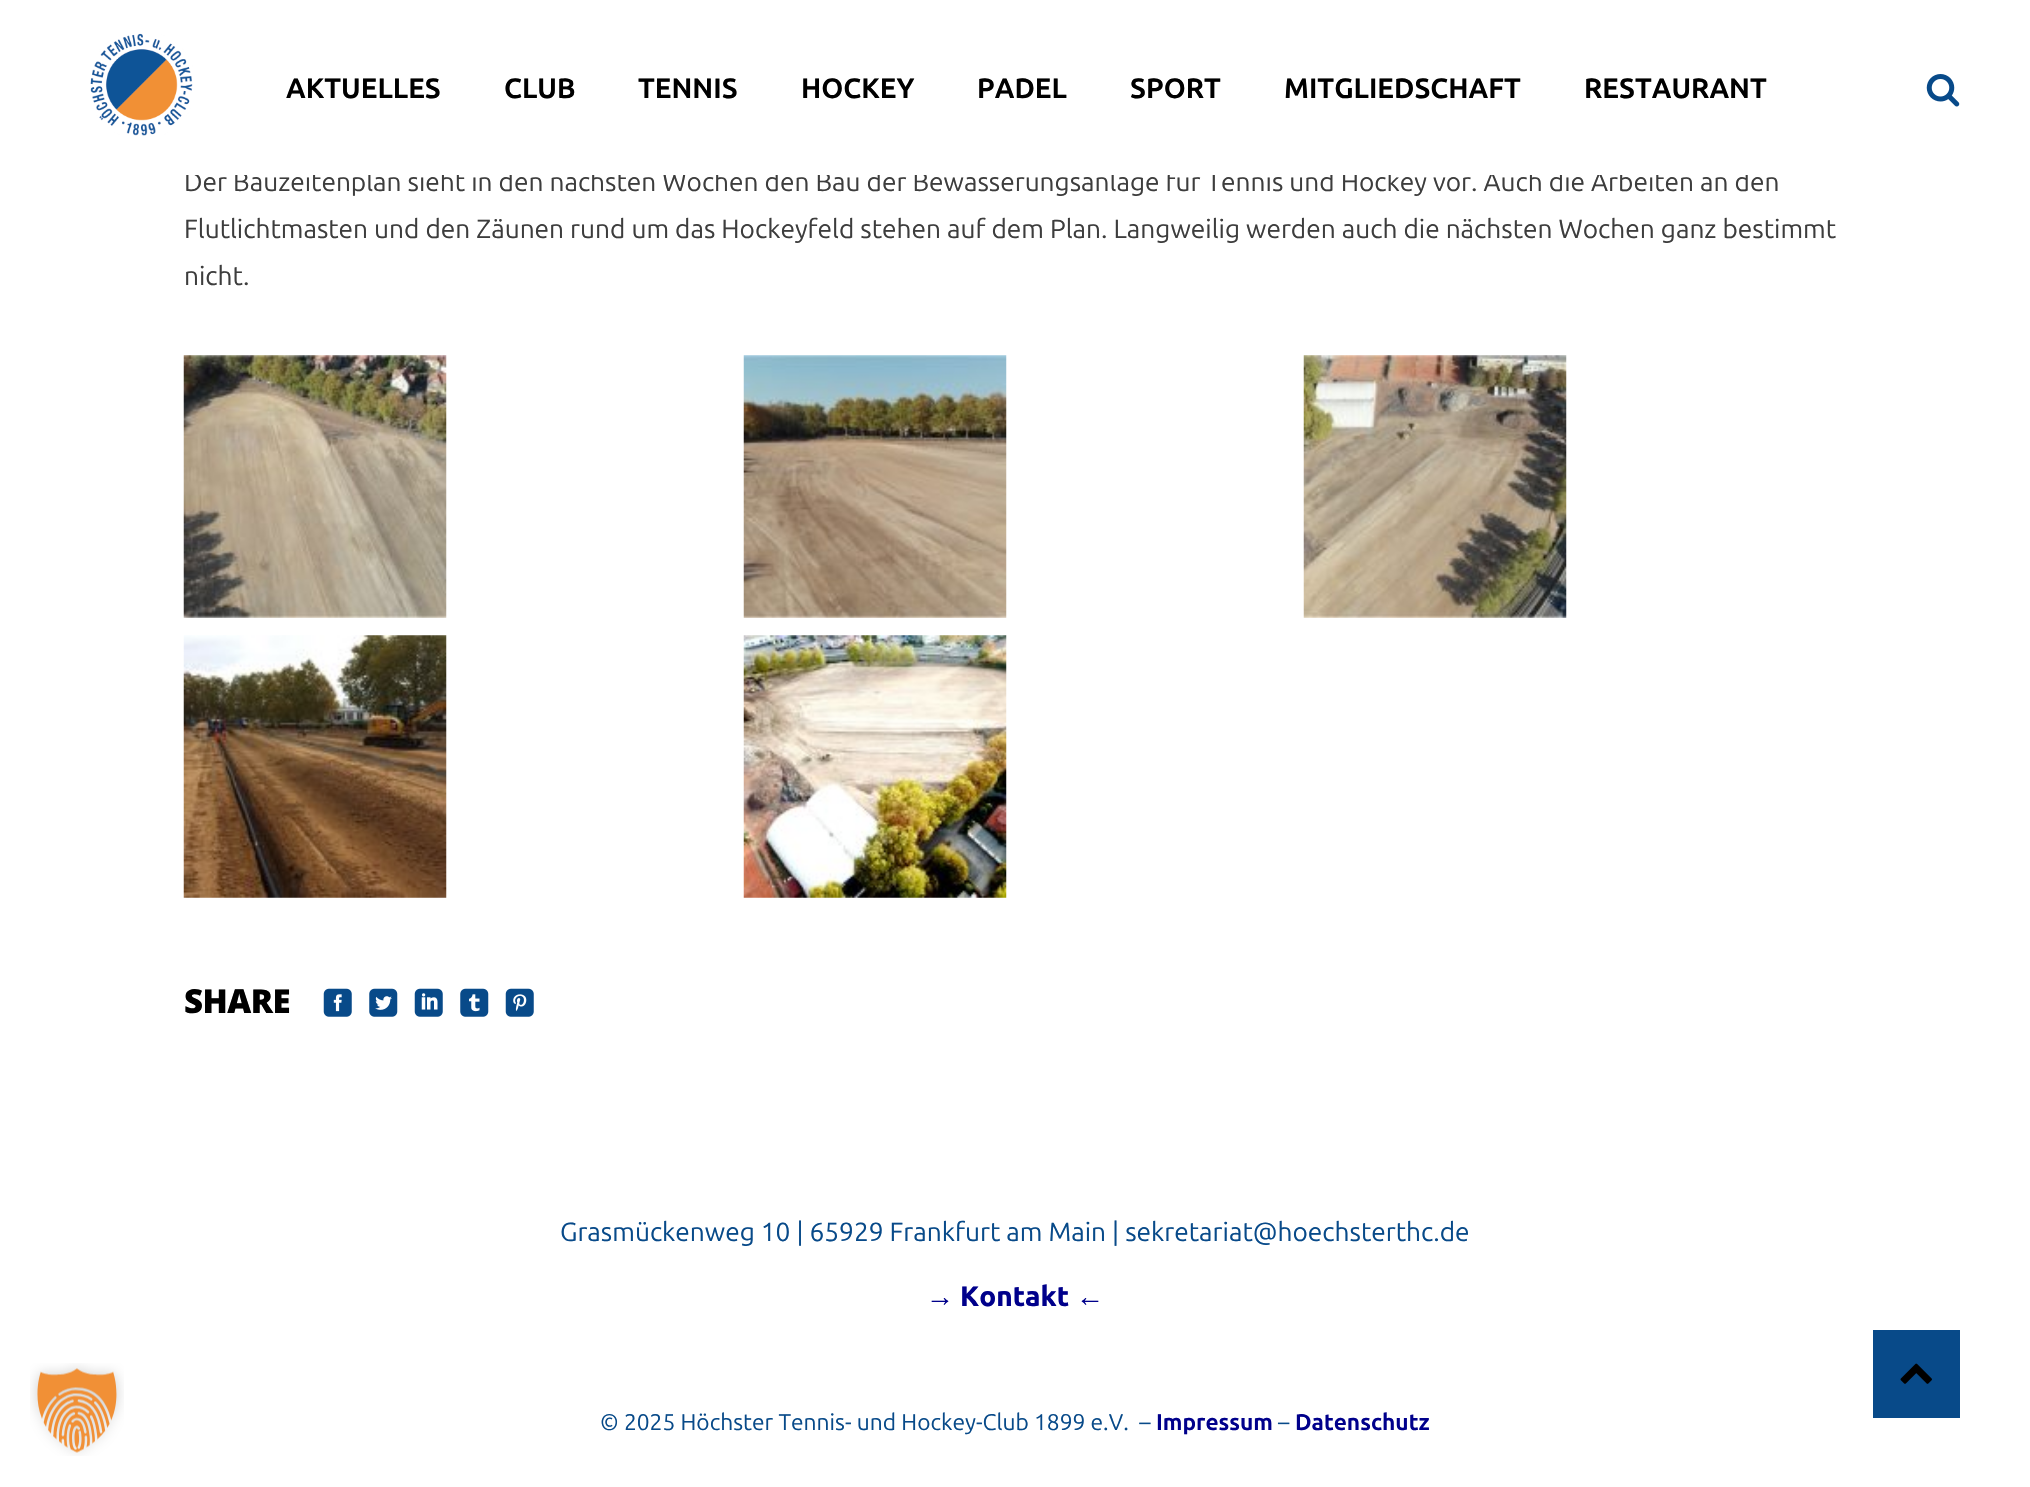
void draw(SkCanvas* c) {
SkPaint p;
p.setAntiAlias(true);
auto F=[&](const char* family, int weight, float size, bool italic = false){SkFontStyle style(weight, SkFontStyle::kNormal_Width,italic ? SkFontStyle::kItalic_Slant : SkFontStyle::kUpright_Slant);SkFont result(fontMgr->matchFamilyStyle(family, style), size);result.setSubpixel(true);return result;};
auto T=[&](const char* s, float x, float y, const SkFont& font){c->drawString(s, x, y, font, p);};
auto L=[&](const char* s, float x, float y, const SkFont& font, const SkPaint& ink, float letter, float word){std::vector<SkGlyphID> glyphs(font.countText(s, strlen(s), SkTextEncoding::kUTF8));std::vector<float> xs(glyphs.size());font.textToGlyphs(s, strlen(s), SkTextEncoding::kUTF8, glyphs);font.getXPos(glyphs, xs, x);float extra = 0;for (size_t i = 0; i < glyphs.size(); i++) {xs[i] += extra;extra += letter + word * (glyphs[i] == font.unicharToGlyph(' '));}c->drawTextBlob(SkTextBlob::MakeFromPosHGlyphs(glyphs, xs, y, font), 0, 0, ink);};
auto R=[&](float x, float y, float w, float h){c->drawRect(SkRect::MakeXYWH(x, y, w, h), p);};
auto I=[&](const char* path, float x, float y, float w, float h){auto image = SkImages::DeferredFromEncodedData(SkData::MakeFromFileName(path));c->drawImageRect(image, SkRect::MakeXYWH(x, y, w, h), SkSamplingOptions());};
c->clear(0xffffffff);
I("1.png",30,1363,94,93);
auto f1 = F("Ubuntu",400,26.25);
p.setColor(0xff3d3d3d);
T("Der Bauzeitenplan sieht in den nächsten Wochen den Bau der Bewässerungsanlage für Tennis und Hockey vor. Auch die Arbeiten an den",184,191,f1);
p.setColor(0xffffffff);
R(186,170,1562,5);
I("2.png",90,33,103,103);
auto f2 = F("Ubuntu",700,28);
p.setColor(0xff000000);
T("AKTUELLES",286,98,f2);
T("CLUB",504,98,f2);
T("TENNIS",638,98,f2);
T("HOCKEY",801,98,f2);
T("PADEL",977,98,f2);
T("SPORT",1130,98,f2);
T("MITGLIEDSCHAFT",1284,98,f2);
T("RESTAURANT",1584,98,f2);
I("3.png",1926,74,34,33);
p.setColor(0xff3d3d3d);
T("Flutlichtmasten und den Zäunen rund um das Hockeyfeld stehen auf dem Plan. Langweilig werden auch die nächsten Wochen ganz bestimmt",184,238,f1);
T("nicht.",184,285,f1);
I("4.png",183,355,264,263);
I("5.png",743,355,264,263);
I("6.png",1303,355,264,263);
I("7.png",183,635,264,263);
I("8.png",743,635,264,263);
auto f3 = F("Open Sans",800,33);
p.setColor(0xff000000);
L("SHARE",184,1013,f3,p,-.5,0);
I("9.png",323,988,29,29);
I("10.png",369,988,29,29);
I("11.png",414,988,29,29);
I("12.png",460,988,29,29);
I("13.png",505,988,29,29);
p.setColor(0xff084a89);
T("Grasmückenweg 10 | 65929 Frankfurt am Main | sekretariat@hoechsterthc.de",560,1241,f1);
auto f4 = F("Liberation Sans",700,28);
p.setColor(0xff00008b);
T("→",926,1306,f4);
auto f5 = F("Ubuntu",800,28);
T("Kontakt",960,1306,f5);
T("←",1076,1306,f4);
auto f6 = F("Ubuntu",400,22.75);
p.setColor(0xff084a89);
T("© 2025 Höchster Tennis- und Hockey-Club 1899 e.V.  –",600,1430,f6);
auto f7 = F("Ubuntu",700,22.75);
p.setColor(0xff00008b);
T("Impressum",1156,1430,f7);
p.setColor(0xff084a89);
T("–",1278,1430,f6);
p.setColor(0xff00008b);
T("Datenschutz",1295,1430,f7);
p.setColor(0xff084a89);
R(1873,1330,87,88);
I("14.png",1900,1363,32,21);
}
